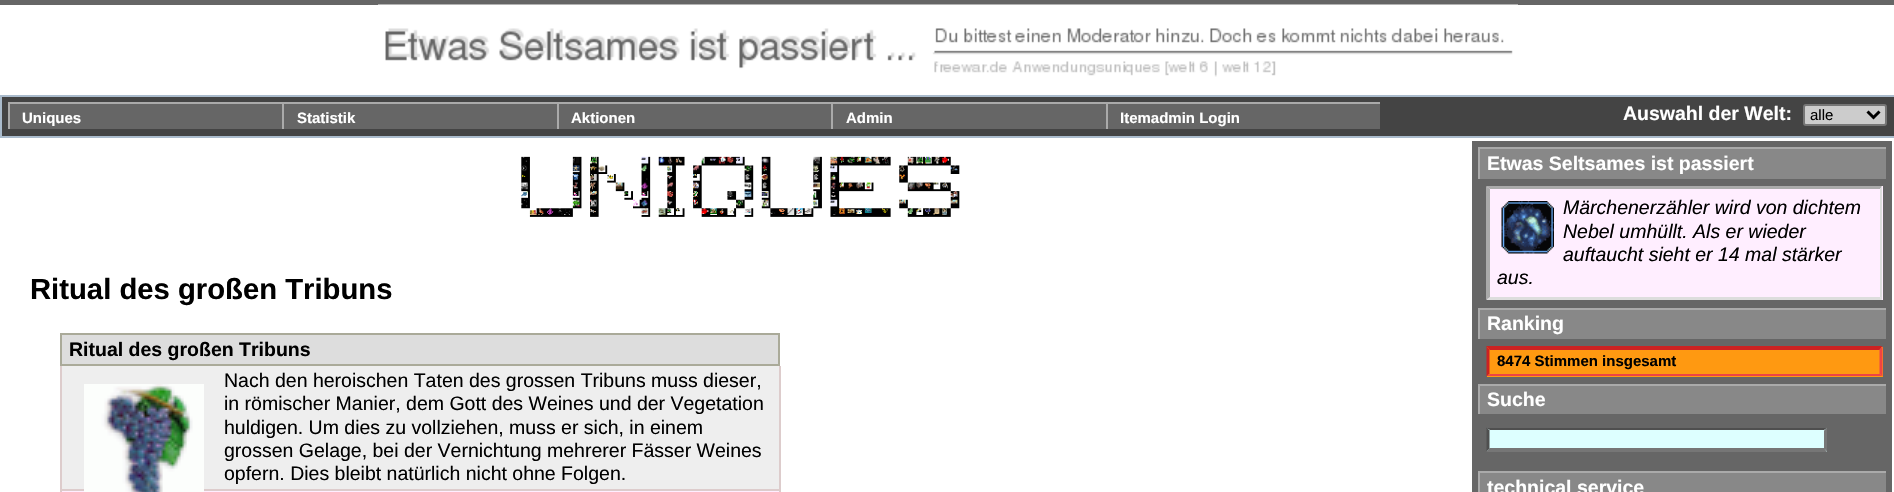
void draw(SkCanvas* c) {
SkPaint p;
p.setAntiAlias(true);
auto F=[&](const char* family, int weight, float size, bool italic = false){SkFontStyle style(weight, SkFontStyle::kNormal_Width,italic ? SkFontStyle::kItalic_Slant : SkFontStyle::kUpright_Slant);SkFont result(fontMgr->matchFamilyStyle(family, style), size);result.setSubpixel(true);return result;};
auto T=[&](const char* s, float x, float y, const SkFont& font){c->drawString(s, x, y, font, p);};
auto R=[&](float x, float y, float w, float h){c->drawRect(SkRect::MakeXYWH(x, y, w, h), p);};
auto I=[&](const char* path, float x, float y, float w, float h){auto image = SkImages::DeferredFromEncodedData(SkData::MakeFromFileName(path));c->drawImageRect(image, SkRect::MakeXYWH(x, y, w, h), SkSamplingOptions());};
auto P=[&](const char* data, bool evenOdd = false){SkPath result = *SkParsePath::FromSVGString(data);if (evenOdd) result.setFillType(SkPathFillType::kEvenOdd);return result;};
c->clear(0xffffffff);
p.setColor(0xff666666);
R(0,0,1894,5);
I("1.png",378,4,1140,73);
p.setColor(0xff444444);
c->drawRect(SkRect::MakeXYWH(1,96,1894,41),p);
p.setStroke(true);
p.setStrokeWidth(2);
p.setColor(0xffaabbcc);
c->drawRect(SkRect::MakeXYWH(1,96,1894,41),p);
p.setStroke(false);
p.setColor(0xff666666);
R(10,104,272,25);
p.setColor(0xffaaaaaa);
R(8,102,1372,2);
R(8,102,2,27);
auto f1 = F("Liberation Sans",700,15);
p.setColor(0xffffffff);
T("Uniques",22,123,f1);
p.setColor(0xff666666);
R(284,104,273,25);
p.setColor(0xffaaaaaa);
R(282,102,2,27);
p.setColor(0xffffffff);
T("Statistik",297,123,f1);
p.setColor(0xff666666);
R(559,104,272,25);
p.setColor(0xffaaaaaa);
R(557,102,2,27);
p.setColor(0xffffffff);
T("Aktionen",571,123,f1);
p.setColor(0xff666666);
R(833,104,273,25);
p.setColor(0xffaaaaaa);
R(831,102,2,27);
p.setColor(0xffffffff);
T("Admin",846,123,f1);
p.setColor(0xff666666);
R(1108,104,272,25);
p.setColor(0xffaaaaaa);
R(1106,102,2,27);
p.setColor(0xffffffff);
T("Itemadmin Login",1120,123,f1);
auto f2 = F("Liberation Sans",700,19.5);
T("Auswahl der Welt:",1623,120,f2);
p.setColor(0xffcccccc);
c->drawRoundRect(SkRect::MakeXYWH(1804,105,82,20),2,2,p);
p.setStroke(true);
p.setColor(0xff767676);
c->drawRoundRect(SkRect::MakeXYWH(1804,105,82,20),2,2,p);
p.setStrokeWidth(3);
p.setColor(0xff000000);
c->drawPath(P("M1867.5 111.5l6 6l6-6"),p);
auto f3 = F("Liberation Sans",400,15);
p.setStroke(false);
T("alle",1810,120,f3);
I("2.png",521,156,439,61);
p.setColor(0xff666666);
R(1472,141,420,351);
p.setColor(0xff888888);
R(1480,149,406,30);
p.setColor(0xffaaaaaa);
R(1478,147,408,2);
R(1478,147,2,32);
p.setColor(0xffffffff);
T("Etwas Seltsames ist passiert",1487,170,f2);
p.setColor(0xffffeeff);
R(1487,186,396,114);
p.setColor(0xffaaaaaa);
c->drawPath(P("M1486 186h396l-2 3h-390z"),p);
p.setColor(0xffdddddd);
c->drawPath(P("M1882 186v114l-2-3v-108z"),p);
c->drawPath(P("M1882 300h-396l4-3h390z"),p);
p.setColor(0xffaaaaaa);
c->drawPath(P("M1486 300v-114l4 3v108z"),p);
I("3.png",1501,201,53,53);
auto f4 = F("Liberation Sans",400,19.5,true);
p.setColor(0xff000000);
T("Märchenerzähler wird von dichtem",1563,214,f4);
T("Nebel umhüllt. Als er wieder",1563,238,f4);
T("auftaucht sieht er 14 mal stärker",1563,261,f4);
T("aus.",1497,284,f4);
p.setColor(0xff888888);
R(1480,310,406,29);
p.setColor(0xffaaaaaa);
R(1478,308,408,2);
R(1478,308,2,31);
p.setColor(0xffffffff);
T("Ranking",1487,330,f2);
p.setColor(0xffff9911);
R(1487,347,396,30);
p.setColor(0xffcc2222);
c->drawPath(P("M1486 346h396l-2 4h-390z"),p);
p.setColor(0xffee4444);
c->drawPath(P("M1882.5 346.5v30l-3-3v-24z"),p);
c->drawPath(P("M1882 376h-396l4-2h390z"),p);
p.setColor(0xffcc2222);
c->drawPath(P("M1486.5 376.5v-30l3 3v24z"),p);
p.setColor(0xff000000);
T("8474 Stimmen insgesamt",1497,366,f1);
p.setColor(0xff888888);
R(1480,386,406,28);
p.setColor(0xffaaaaaa);
R(1478,384,408,2);
R(1478,384,2,30);
p.setColor(0xffffffff);
T("Suche",1487,406,f2);
p.setColor(0xffddffff);
R(1487,428,340,24);
p.setColor(0xff4f4f4f);
c->drawPath(P("M1486 428h341l-3 2h-334z"),p);
p.setColor(0xff767676);
c->drawPath(P("M1827 427.5v24l-3-3v-18z"),p);
c->drawPath(P("M1827 452h-341l4-4h334z"),p);
p.setColor(0xff4f4f4f);
c->drawPath(P("M1486.5 451.5v-24l3 3v18z"),p);
p.setColor(0xff888888);
R(1480,473,406,19);
p.setColor(0xffaaaaaa);
R(1478,471,408,2);
R(1478,471,2,21);
p.setColor(0xffffffff);
T("technical service",1487,494,f2);
auto f5 = F("Liberation Sans",700,29.25);
p.setColor(0xff000000);
T("Ritual des großen Tribuns",30,299,f5);
p.setColor(0xffdddddd);
c->drawRect(SkRect::MakeXYWH(61,334,718,31),p);
p.setStroke(true);
p.setStrokeWidth(2);
p.setColor(0xffaaaa99);
c->drawRect(SkRect::MakeXYWH(61,334,718,31),p);
p.setStroke(false);
p.setColor(0xff000000);
T("Ritual des großen Tribuns",69,356,f2);
p.setColor(0xffeeeeee);
R(62,366,717,123);
p.setColor(0xffddcccc);
R(779,366,2,125);
R(60,489,720,2);
R(60,366,2,125);
auto f6 = F("Liberation Sans",400,19.5);
p.setColor(0xff000000);
T("Nach den heroischen Taten des grossen Tribuns muss dieser,",224,387,f6);
p.setColor(0xffffeeff);
R(60,491,720,1);
I("4.png",84,384,120,108);
p.setColor(0xff000000);
T("in römischer Manier, dem Gott des Weines und der Vegetation",224,410,f6);
T("huldigen. Um dies zu vollziehen, muss er sich, in einem",224,434,f6);
T("grossen Gelage, bei der Vernichtung mehrerer Fässer Weines",224,457,f6);
T("opfern. Dies bleibt natürlich nicht ohne Folgen.",224,480,f6);
p.setColor(0xffddcccc);
R(779,491,2,1);
R(60,491,2,1);
}
